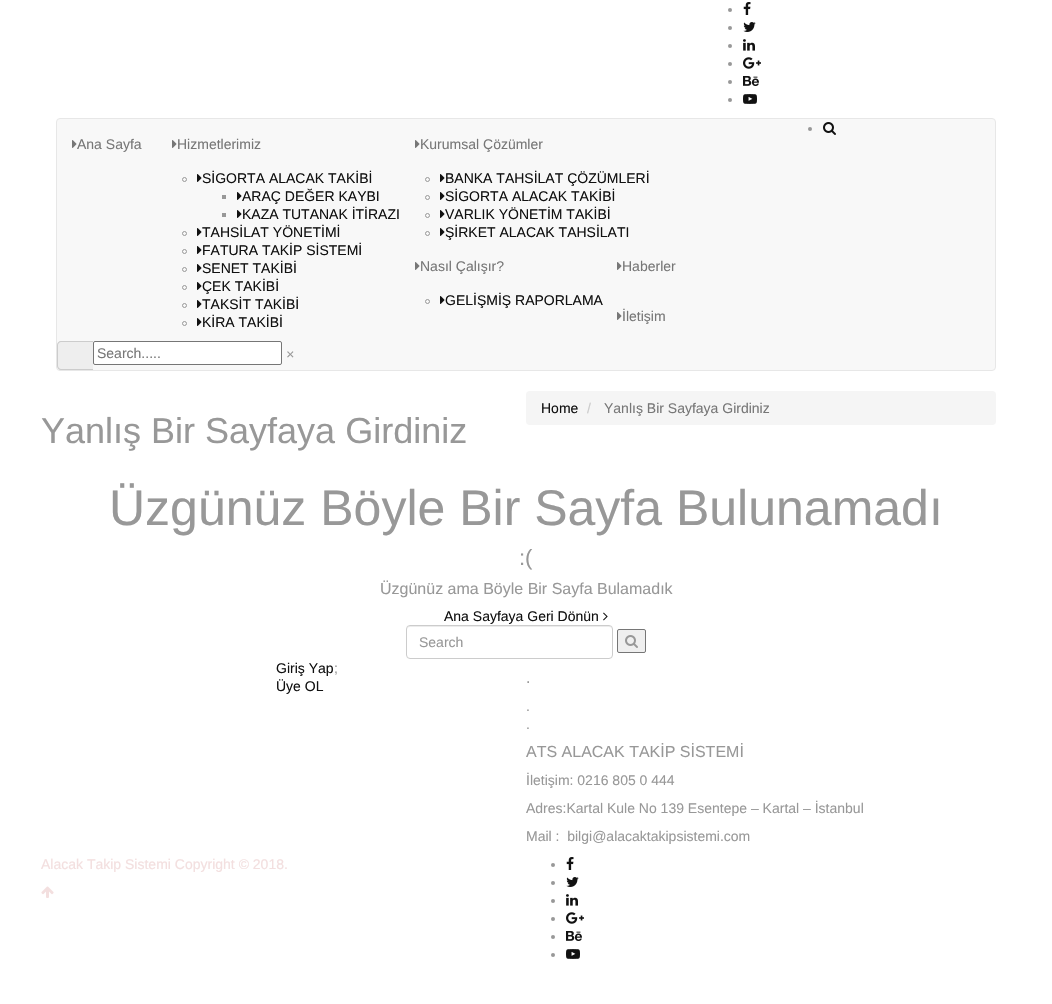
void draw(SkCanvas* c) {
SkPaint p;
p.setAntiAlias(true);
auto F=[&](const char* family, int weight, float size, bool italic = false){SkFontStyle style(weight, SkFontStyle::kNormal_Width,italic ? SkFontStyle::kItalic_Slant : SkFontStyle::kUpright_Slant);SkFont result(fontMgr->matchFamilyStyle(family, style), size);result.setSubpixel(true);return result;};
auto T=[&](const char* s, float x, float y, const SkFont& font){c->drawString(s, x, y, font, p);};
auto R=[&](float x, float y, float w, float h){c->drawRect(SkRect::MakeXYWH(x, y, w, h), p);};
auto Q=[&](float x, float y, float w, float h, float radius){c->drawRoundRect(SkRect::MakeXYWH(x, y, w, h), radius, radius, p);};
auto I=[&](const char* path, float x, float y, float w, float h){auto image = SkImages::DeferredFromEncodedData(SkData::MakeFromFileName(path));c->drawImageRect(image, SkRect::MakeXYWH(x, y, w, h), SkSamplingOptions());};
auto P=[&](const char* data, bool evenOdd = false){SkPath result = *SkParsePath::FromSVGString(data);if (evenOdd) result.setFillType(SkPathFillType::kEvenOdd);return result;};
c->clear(0xffffffff);
p.setColor(0xff989898);
c->drawCircle(730,10,2,p);
I("1.png",743,2,8,13);
c->drawCircle(730,28,2,p);
I("2.png",743,22,13,10);
c->drawCircle(730,46,2,p);
I("3.png",743,39,12,12);
c->drawCircle(730,64,2,p);
I("4.png",743,57,18,12);
c->drawCircle(730,82,2,p);
I("5.png",743,76,16,10);
c->drawCircle(730,100,2,p);
I("6.png",743,94,14,10);
p.setColor(0xfff8f8f8);
c->drawRoundRect(SkRect::MakeXYWH(56.5,118.5,939,252),3.5,3.5,p);
p.setStroke(true);
p.setStrokeWidth(1);
p.setColor(0xffe7e7e7);
c->drawRoundRect(SkRect::MakeXYWH(56.5,118.5,939,252),3.5,3.5,p);
p.setStroke(false);
p.setColor(0xff989898);
c->drawCircle(810,129,2,p);
I("7.png",823,122,13,13);
I("8.png",72,140,5,8);
auto f1 = F("Liberation Sans",400,14);
p.setColor(0xff777777);
T("Ana Sayfa",77,149,f1);
I("8.png",172,140,5,8);
T("Hizmetlerimiz",177,149,f1);
p.setStroke(true);
p.setColor(0xff989898);
c->drawCircle(184.5,179.5,2,p);
I("9.png",197,174,5,8);
p.setStroke(false);
p.setColor(0xff111111);
T("SİGORTA ALACAK TAKİBİ",202,183,f1);
p.setColor(0xff989898);
R(222,195,4,4);
I("9.png",237,192,5,8);
p.setColor(0xff111111);
T("ARAÇ DEĞER KAYBI",242,201,f1);
p.setColor(0xff989898);
R(222,213,4,4);
I("9.png",237,210,5,8);
p.setColor(0xff111111);
T("KAZA TUTANAK İTİRAZI",242,219,f1);
p.setStroke(true);
p.setColor(0xff989898);
c->drawCircle(184.5,233.5,2,p);
I("9.png",197,228,5,8);
p.setStroke(false);
p.setColor(0xff111111);
T("TAHSİLAT YÖNETİMİ",202,237,f1);
p.setStroke(true);
p.setColor(0xff989898);
c->drawCircle(184.5,251.5,2,p);
I("9.png",197,246,5,8);
p.setStroke(false);
p.setColor(0xff111111);
T("FATURA TAKİP SİSTEMİ",202,255,f1);
p.setStroke(true);
p.setColor(0xff989898);
c->drawCircle(184.5,269.5,2,p);
I("9.png",197,264,5,8);
p.setStroke(false);
p.setColor(0xff111111);
T("SENET TAKİBİ",202,273,f1);
p.setStroke(true);
p.setColor(0xff989898);
c->drawCircle(184.5,287.5,2,p);
I("9.png",197,282,5,8);
p.setStroke(false);
p.setColor(0xff111111);
T("ÇEK TAKİBİ",202,291,f1);
p.setStroke(true);
p.setColor(0xff989898);
c->drawCircle(184.5,305.5,2,p);
I("9.png",197,300,5,8);
p.setStroke(false);
p.setColor(0xff111111);
T("TAKSİT TAKİBİ",202,309,f1);
p.setStroke(true);
p.setColor(0xff989898);
c->drawCircle(184.5,323.5,2,p);
I("9.png",197,318,5,8);
p.setStroke(false);
p.setColor(0xff111111);
T("KİRA TAKİBİ",202,327,f1);
I("8.png",415,140,5,8);
p.setColor(0xff777777);
T("Kurumsal Çözümler",420,149,f1);
p.setStroke(true);
p.setColor(0xff989898);
c->drawCircle(427.5,179.5,2,p);
I("9.png",440,174,5,8);
p.setStroke(false);
p.setColor(0xff111111);
T("BANKA TAHSİLAT ÇÖZÜMLERİ",445,183,f1);
p.setStroke(true);
p.setColor(0xff989898);
c->drawCircle(427.5,197.5,2,p);
I("9.png",440,192,5,8);
p.setStroke(false);
p.setColor(0xff111111);
T("SİGORTA ALACAK TAKİBİ",445,201,f1);
p.setStroke(true);
p.setColor(0xff989898);
c->drawCircle(427.5,215.5,2,p);
I("9.png",440,210,5,8);
p.setStroke(false);
p.setColor(0xff111111);
T("VARLIK YÖNETİM TAKİBİ",445,219,f1);
p.setStroke(true);
p.setColor(0xff989898);
c->drawCircle(427.5,233.5,2,p);
I("9.png",440,228,5,8);
p.setStroke(false);
p.setColor(0xff111111);
T("ŞİRKET ALACAK TAHSİLATI",445,237,f1);
I("8.png",415,262,5,8);
p.setColor(0xff777777);
T("Nasıl Çalışır?",420,271,f1);
p.setStroke(true);
p.setColor(0xff989898);
c->drawCircle(427.5,301.5,2,p);
I("9.png",440,296,5,8);
p.setStroke(false);
p.setColor(0xff111111);
T("GELİŞMİŞ RAPORLAMA",445,305,f1);
I("8.png",617,262,5,8);
p.setColor(0xff777777);
T("Haberler",622,271,f1);
I("8.png",617,312,5,8);
T("İletişim",622,321,f1);
p.setColor(0xffeeeeee);
c->drawPath(P("M61 341h32v29h-32c-2 0-4-2-4-4v-21c0-2 2-4 4-4z"),p);
p.setColor(0xffcccccc);
c->drawPath(P("M61 341h32v29h-32c-2 0-4-2-4-4v-21c0-2 2-4 4-4zm0 1h32v27h-32c-1.5 0-3-1.5-3-3v-21c0-1.5 1.5-3 3-3z",true),p);
p.setColor(0xffffffff);
c->drawRoundRect(SkRect::MakeXYWH(93.5,341.5,188,23),1.5,1.5,p);
p.setStroke(true);
p.setColor(0xff767676);
c->drawRoundRect(SkRect::MakeXYWH(93.5,341.5,188,23),1.5,1.5,p);
p.setStroke(false);
p.setColor(0xff777777);
T("Search.....",97,358,f1);
auto f2 = F("Liberation Sans",400,14,true);
p.setColor(0xff989898);
T("×",286,359,f2);
p.setColor(0xfff5f5f5);
Q(526,391,470,34,4);
p.setColor(0xff111111);
T("Home",541,413,f1);
p.setColor(0xffcccccc);
T("/",587,413,f1);
p.setColor(0xff777777);
T("Yanlış Bir Sayfaya Girdiniz",604,413,f1);
auto f3 = F("Liberation Sans",400,36);
p.setColor(0xff989898);
T("Yanlış Bir Sayfaya Girdiniz",41,443,f3);
auto f4 = F("Liberation Sans",400,50);
T("Üzgünüz Böyle Bir Sayfa Bulunamadı",109,525,f4);
auto f5 = F("Liberation Sans",400,22);
T(":(",519,565,f5);
auto f6 = F("Liberation Sans",400,16);
T("Üzgünüz ama Böyle Bir Sayfa Bulamadık",380,594,f6);
p.setColor(0xff111111);
T("Ana Sayfaya Geri Dönün",444,621,f1);
I("10.png",603,612,5,9);
p.setColor(0xffececec);
c->drawPath(P("M410 627h199c2 0 3 1 3 3c0-2-1-4-3-4h-199c-2 0-3 2-3 4c0-2 1-3 3-3z"),p);
p.setStroke(true);
p.setColor(0xffcccccc);
c->drawRoundRect(SkRect::MakeXYWH(406.5,625.5,206,33),3.5,3.5,p);
p.setStroke(false);
p.setColor(0xff989898);
T("Search",419,647,f1);
p.setColor(0xffefefef);
c->drawRoundRect(SkRect::MakeXYWH(617.5,629.5,28,23),1.5,1.5,p);
p.setStroke(true);
p.setColor(0xff767676);
c->drawRoundRect(SkRect::MakeXYWH(617.5,629.5,28,23),1.5,1.5,p);
I("11.png",625,635,13,13);
p.setStroke(false);
p.setColor(0xff111111);
T("Giriş Yap",276,673,f1);
p.setColor(0xff989898);
T(";",334,673,f1);
p.setColor(0xff111111);
T("Üye OL",276,691,f1);
p.setColor(0xff989898);
T(".",526,683,f6);
T(".",526,711,f1);
T(".",526,729,f1);
T("ATS ALACAK TAKİP SİSTEMİ",526,757,f6);
T("İletişim: 0216 805 0 444",526,785,f1);
T("Adres:Kartal Kule No 139 Esentepe – Kartal – İstanbul",526,813,f1);
T("Mail :  bilgi@alacaktakipsistemi.com",526,841,f1);
p.setColor(0xfff3dfdf);
T("Alacak Takip Sistemi Copyright © 2018.",41,869,f1);
I("12.png",41,886,13,12);
p.setColor(0xff989898);
c->drawCircle(553,865,2,p);
I("1.png",566,857,8,13);
c->drawCircle(553,883,2,p);
I("2.png",566,877,13,10);
c->drawCircle(553,901,2,p);
I("3.png",566,894,12,12);
c->drawCircle(553,919,2,p);
I("4.png",566,912,18,12);
c->drawCircle(553,937,2,p);
I("5.png",566,931,16,10);
c->drawCircle(553,955,2,p);
I("6.png",566,949,14,10);
}
